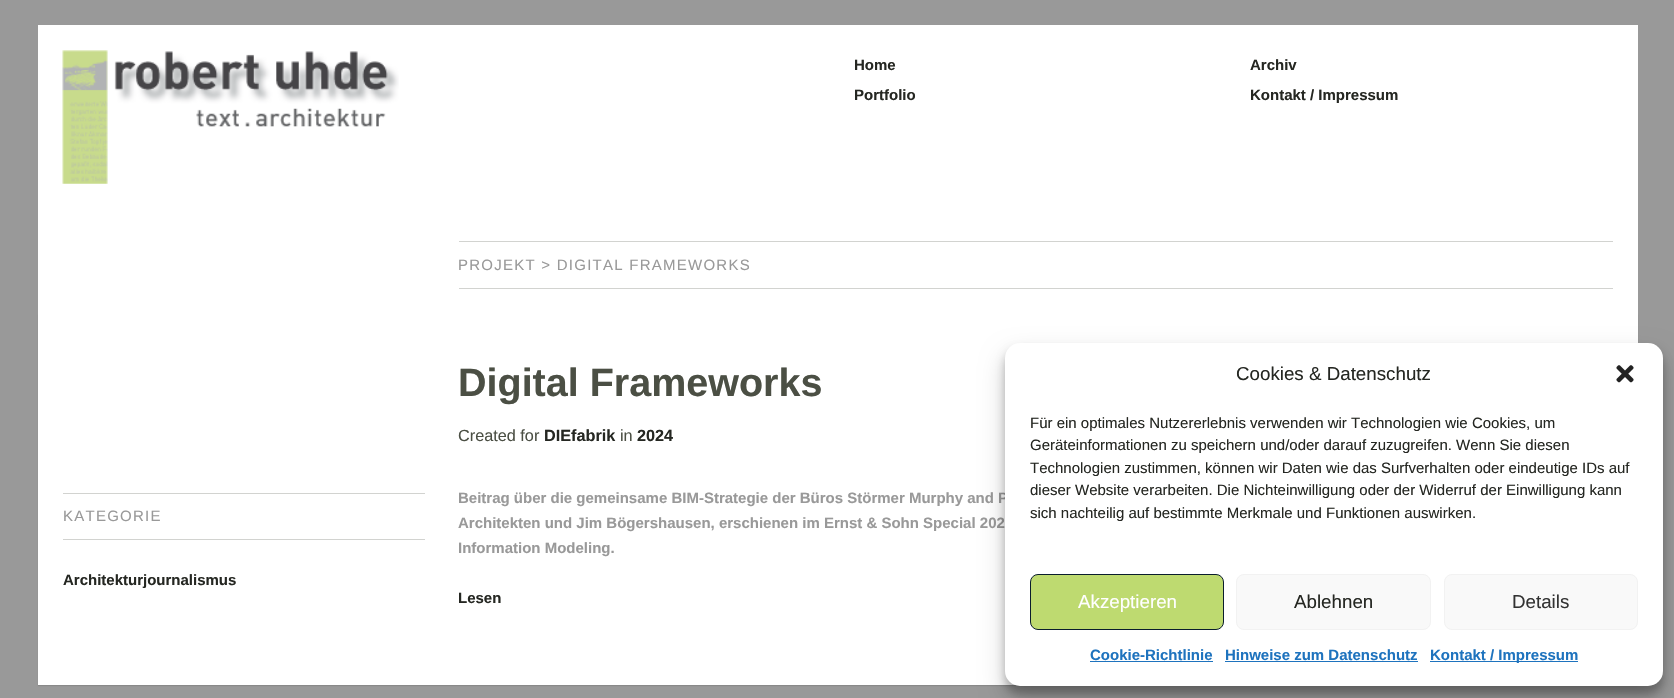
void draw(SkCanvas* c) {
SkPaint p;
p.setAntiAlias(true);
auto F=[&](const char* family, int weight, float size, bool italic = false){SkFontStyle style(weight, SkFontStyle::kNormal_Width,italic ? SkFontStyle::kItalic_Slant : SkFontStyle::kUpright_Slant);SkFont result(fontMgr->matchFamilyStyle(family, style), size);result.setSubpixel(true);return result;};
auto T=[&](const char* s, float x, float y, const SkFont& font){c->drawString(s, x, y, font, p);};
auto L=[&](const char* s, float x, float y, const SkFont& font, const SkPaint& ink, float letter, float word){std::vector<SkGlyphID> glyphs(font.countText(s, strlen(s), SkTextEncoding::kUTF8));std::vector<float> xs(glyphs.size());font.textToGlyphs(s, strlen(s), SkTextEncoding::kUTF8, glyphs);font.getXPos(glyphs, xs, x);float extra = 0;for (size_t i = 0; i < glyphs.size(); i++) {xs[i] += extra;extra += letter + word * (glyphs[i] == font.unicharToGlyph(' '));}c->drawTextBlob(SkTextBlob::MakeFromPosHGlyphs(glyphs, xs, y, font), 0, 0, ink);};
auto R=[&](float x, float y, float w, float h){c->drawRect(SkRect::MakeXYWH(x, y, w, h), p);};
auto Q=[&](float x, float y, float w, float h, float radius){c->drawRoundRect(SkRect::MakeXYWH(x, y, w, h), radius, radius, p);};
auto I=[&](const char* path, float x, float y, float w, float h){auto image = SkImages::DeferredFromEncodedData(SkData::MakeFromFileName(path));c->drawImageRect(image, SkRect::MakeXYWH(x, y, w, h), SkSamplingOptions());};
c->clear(0xff999999);
p.setColor(0xffffffff);
R(38,25,1600,289);
I("1.png",62,50,337,134);
auto f1 = F("Liberation Sans",700,15);
p.setColor(0xff252722);
T("Home",854,70,f1);
T("Portfolio",854,100,f1);
T("Archiv",1250,70,f1);
T("Kontakt / Impressum",1250,100,f1);
p.setColor(0xffd2d3d0);
R(459,241,1154,1);
R(459,288,1154,1);
auto f2 = F("Liberation Sans",400,15);
p.setColor(0xff999999);
L("PROJEKT > DIGITAL FRAMEWORKS",458,270,f2,p,1.25,0);
p.setColor(0x1a000000);
p.setMaskFilter(SkMaskFilter::MakeBlur(kNormal_SkBlurStyle, .5));
c->drawRect(SkRect::MakeXYWH(38,315,1600,371),p);
p.setMaskFilter(nullptr);
p.setColor(0xffffffff);
R(38,314,1600,371);
auto f3 = F("Liberation Sans",700,39.5);
p.setColor(0xff4b4f44);
T("Digital Frameworks",458,396,f3);
auto f4 = F("Liberation Sans",400,16.25);
T("Created for",458,441,f4);
auto f5 = F("Liberation Sans",700,16.25);
p.setColor(0xff252722);
T("DIEfabrik",544,441,f5);
p.setColor(0xff4b4f44);
T("in",620,441,f4);
p.setColor(0xff252722);
T("2024",637,441,f5);
p.setColor(0xffd2d3d0);
R(63,493,362,1);
R(63,539,362,1);
p.setColor(0xff999999);
L("KATEGORIE",63,521,f2,p,1.25,0);
p.setColor(0xff252722);
T("Architekturjournalismus",63,585,f1);
p.setColor(0xff999999);
T("Beitrag über die gemeinsame BIM-Strategie der Büros Störmer Murphy and P",458,503,f1);
T("Architekten und Jim Bögershausen, erschienen im Ernst & Sohn Special 202",458,528,f1);
T("Information Modeling.",458,553,f1);
p.setColor(0xff252722);
T("Lesen",458,603,f1);
p.setColor(0x3b000000);
p.setMaskFilter(SkMaskFilter::MakeBlur(kNormal_SkBlurStyle, 4));
c->drawRoundRect(SkRect::MakeXYWH(1005,350,658,344),15,15,p);
p.setMaskFilter(nullptr);
p.setColor(0x30000000);
p.setMaskFilter(SkMaskFilter::MakeBlur(kNormal_SkBlurStyle, 12.5));
c->drawRoundRect(SkRect::MakeXYWH(1005,355,658,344),15,15,p);
p.setMaskFilter(nullptr);
p.setColor(0xffffffff);
Q(1005,343,658,343,15);
auto f6 = F("Liberation Sans",400,18.75);
p.setColor(0xff252722);
T("Cookies & Datenschutz",1236,380,f6);
I("2.png",1616,365,18,18);
T("Für ein optimales Nutzererlebnis verwenden wir Technologien wie Cookies, um",1030,428,f2);
T("Geräteinformationen zu speichern und/oder darauf zuzugreifen. Wenn Sie diesen",1030,450,f2);
T("Technologien zustimmen, können wir Daten wie das Surfverhalten oder eindeutige IDs auf",1030,473,f2);
T("dieser Website verarbeiten. Die Nichteinwilligung oder der Widerruf der Einwilligung kann",1030,495,f2);
T("sich nachteilig auf bestimmte Merkmale und Funktionen auswirken.",1030,518,f2);
p.setColor(0xffbeda70);
c->drawRoundRect(SkRect::MakeXYWH(1030.5,574.5,193,55),7.5,7.5,p);
p.setStroke(true);
p.setStrokeWidth(1);
p.setColor(0xff0a1d2d);
c->drawRoundRect(SkRect::MakeXYWH(1030.5,574.5,193,55),7.5,7.5,p);
p.setStroke(false);
p.setColor(0xffffffff);
T("Akzeptieren",1078,608,f6);
p.setColor(0xfff9f9f9);
c->drawRoundRect(SkRect::MakeXYWH(1236.5,574.5,194,55),7.5,7.5,p);
p.setStroke(true);
p.setColor(0xfff2f2f2);
c->drawRoundRect(SkRect::MakeXYWH(1236.5,574.5,194,55),7.5,7.5,p);
p.setStroke(false);
p.setColor(0xff252722);
T("Ablehnen",1294,608,f6);
p.setColor(0xfff9f9f9);
c->drawRoundRect(SkRect::MakeXYWH(1444.5,574.5,193,55),7.5,7.5,p);
p.setStroke(true);
p.setColor(0xfff2f2f2);
c->drawRoundRect(SkRect::MakeXYWH(1444.5,574.5,193,55),7.5,7.5,p);
p.setStroke(false);
p.setColor(0xff333333);
T("Details",1512,608,f6);
p.setColor(0xff1e73be);
T("Cookie-Richtlinie",1090,660,f1);
R(1090,661,123,1);
T("Hinweise zum Datenschutz",1225,660,f1);
R(1225,661,193,1);
R(1430,661,148,1);
T("Kontakt / Impressum",1430,660,f1);
}
